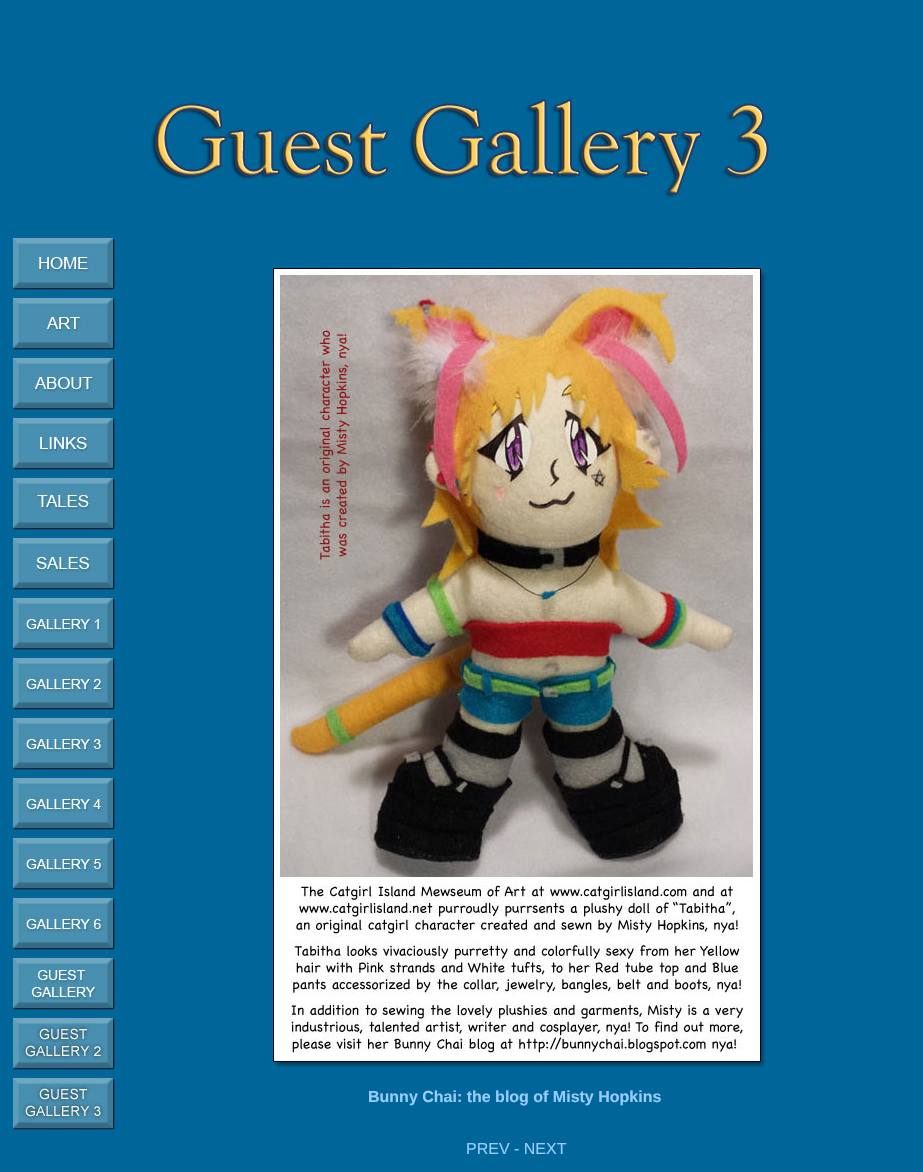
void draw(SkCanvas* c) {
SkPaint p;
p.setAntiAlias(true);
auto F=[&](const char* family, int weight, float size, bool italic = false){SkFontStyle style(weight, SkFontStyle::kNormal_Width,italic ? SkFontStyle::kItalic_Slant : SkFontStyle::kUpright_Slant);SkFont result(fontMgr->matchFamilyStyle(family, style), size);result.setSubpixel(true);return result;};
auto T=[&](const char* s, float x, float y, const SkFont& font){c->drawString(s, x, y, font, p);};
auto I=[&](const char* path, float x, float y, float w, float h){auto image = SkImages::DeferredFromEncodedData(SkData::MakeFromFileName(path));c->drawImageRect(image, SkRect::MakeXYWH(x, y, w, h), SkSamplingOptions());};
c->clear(0xff006699);
I("1.png",150,94,619,104);
I("2.png",8,233,110,60);
I("3.png",8,293,110,60);
I("4.png",8,353,110,60);
I("5.png",8,413,110,60);
I("6.png",8,473,110,60);
I("7.png",8,533,110,60);
I("8.png",8,593,110,60);
I("9.png",8,653,110,60);
I("10.png",8,713,110,60);
I("11.png",8,773,110,60);
I("12.png",8,833,110,60);
I("13.png",8,893,110,60);
I("14.png",8,953,110,60);
I("15.png",8,1013,110,60);
I("16.png",8,1073,110,60);
I("17.png",271,266,496,806);
auto f1 = F("Liberation Sans",700,16);
p.setColor(0xff99ccff);
T("Bunny Chai: the blog of Misty Hopkins",368,1102,f1);
auto f2 = F("Liberation Sans",400,16);
T("PREV - NEXT",466,1154,f2);
}
